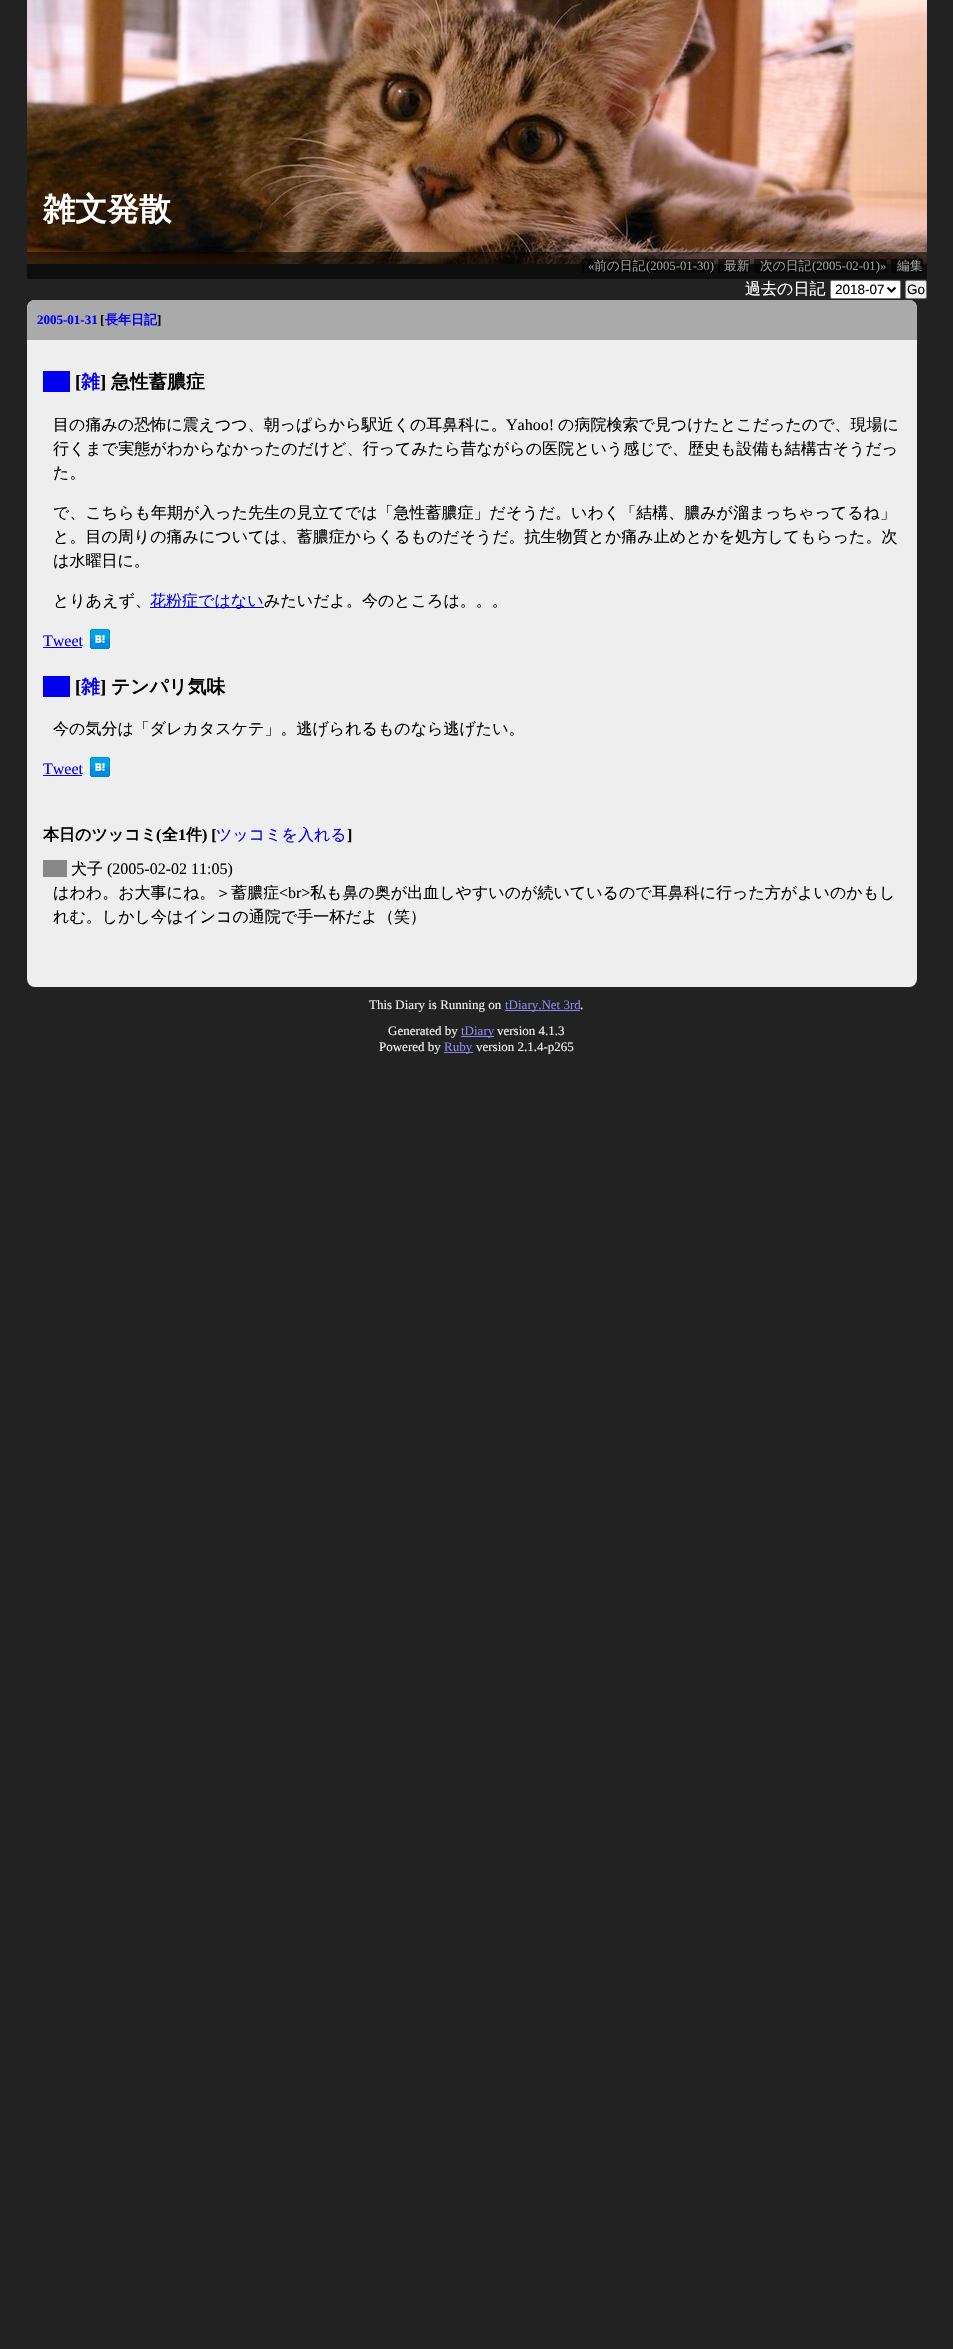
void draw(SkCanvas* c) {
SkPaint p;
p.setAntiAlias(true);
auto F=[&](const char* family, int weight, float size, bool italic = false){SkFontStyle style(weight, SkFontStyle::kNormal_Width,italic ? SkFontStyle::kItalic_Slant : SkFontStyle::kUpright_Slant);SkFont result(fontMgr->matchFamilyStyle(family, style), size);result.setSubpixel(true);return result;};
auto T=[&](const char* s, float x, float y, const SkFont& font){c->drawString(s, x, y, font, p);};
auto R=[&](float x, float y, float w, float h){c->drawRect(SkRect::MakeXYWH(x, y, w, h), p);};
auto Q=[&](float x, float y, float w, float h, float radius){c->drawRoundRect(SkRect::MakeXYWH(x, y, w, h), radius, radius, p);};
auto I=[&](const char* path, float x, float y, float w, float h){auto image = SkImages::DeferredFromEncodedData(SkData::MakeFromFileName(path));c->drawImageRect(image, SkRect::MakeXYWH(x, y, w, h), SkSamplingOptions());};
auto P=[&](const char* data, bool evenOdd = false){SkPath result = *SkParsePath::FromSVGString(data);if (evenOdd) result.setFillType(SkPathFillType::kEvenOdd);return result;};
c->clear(0xff222222);
I("1.png",27,0,900,264);
auto f1 = F("WenQuanYi Zen Hei",700,32);
p.setColor(0xffffffff);
T("雑文発散",43,220,f1);
p.setColor(0x99000000);
R(27,252,900,27);
R(582,259,132,14);
auto f2 = F("Liberation Serif",400,12.75);
p.setColor(0xffa7a7a7);
T("«",588,270,f2);
auto f3 = F("WenQuanYi Zen Hei",500,12.75);
p.setColor(0xff9d9c9c);
T("前の日記",594,270,f3);
T("(2005-01-30)",646,270,f2);
p.setColor(0x99000000);
R(718,259,32,14);
p.setColor(0xff9d9c9c);
T("最新",724,270,f3);
p.setColor(0x99000000);
R(754,259,133,14);
p.setColor(0xff9d9c9c);
T("次の日記",760,270,f3);
T("(2005-02-01)»",812,270,f2);
p.setColor(0x99000000);
R(891,259,32,14);
p.setColor(0xff9d9c9c);
T("編集",897,270,f3);
auto f4 = F("WenQuanYi Zen Hei",500,16);
p.setColor(0xffffffff);
T("過去の日記",745,294,f4);
c->drawRoundRect(SkRect::MakeXYWH(830.5,280.5,70,18),1.5,1.5,p);
p.setStroke(true);
p.setStrokeWidth(1);
p.setColor(0xff767676);
c->drawRoundRect(SkRect::MakeXYWH(830.5,280.5,70,18),1.5,1.5,p);
p.setStrokeWidth(2);
p.setColor(0xff000000);
c->drawPath(P("M887.5 287.5l4 4l4-4"),p);
auto f5 = F("Liberation Sans",400,13.5);
p.setStroke(false);
T("2018-07",835,294,f5);
p.setColor(0xffefefef);
c->drawRoundRect(SkRect::MakeXYWH(905.5,280.5,21,18),1.5,1.5,p);
p.setStroke(true);
p.setStrokeWidth(1);
p.setColor(0xff767676);
c->drawRoundRect(SkRect::MakeXYWH(905.5,280.5,21,18),1.5,1.5,p);
p.setStroke(false);
p.setColor(0xff000000);
T("Go",907,294,f5);
p.setColor(0xffeeeeee);
Q(27,300,890,687,8);
p.setColor(0xffaaaaaa);
c->drawPath(P("M35 300h874c4.5 0 8 3.5 8 8v32h-890v-32c0-4.5 3.5-8 8-8z"),p);
auto f6 = F("Liberation Serif",700,13);
p.setColor(0xff0000ee);
T("2005-01-31",37,324,f6);
p.setColor(0xff000000);
T("[",100,324,f6);
auto f7 = F("WenQuanYi Zen Hei",700,13);
p.setColor(0xff0000ee);
T("長年日記",105,324,f7);
p.setColor(0xff000000);
T("]",157,324,f6);
p.setColor(0xff0000ee);
R(43,371,27,21);
auto f8 = F("Liberation Serif",700,18.75);
p.setColor(0xff000000);
T("[",75,388,f8);
auto f9 = F("WenQuanYi Zen Hei",700,18.75);
p.setColor(0xff0000ee);
T("雑",81,388,f9);
p.setColor(0xff000000);
T("]",100,388,f8);
T("急性蓄膿症",111,388,f9);
T("目の痛みの恐怖に震えつつ、朝っぱらから駅近くの耳鼻科に。",53,430,f4);
auto f10 = F("Liberation Serif",400,16);
T("Yahoo!",506,430,f10);
T("の病院検索で見つけたとこだったので、現場に",558,430,f4);
T("行くまで実態がわからなかったのだけど、行ってみたら昔ながらの医院という感じで、歴史も設備も結構古そうだっ",53,454,f4);
T("た。",53,478,f4);
T("で、こちらも年期が入った先生の見立てでは「急性蓄膿症」だそうだ。いわく「結構、膿みが溜まっちゃってるね」",53,518,f4);
T("と。目の周りの痛みについては、蓄膿症からくるものだそうだ。抗生物質とか痛み止めとかを処方してもらった。次",53,542,f4);
T("は水曜日に。",53,566,f4);
T("とりあえず、",53,606,f4);
p.setColor(0xff0000ee);
R(150,607,114,1);
T("花粉症ではない",150,606,f4);
p.setColor(0xff000000);
T("みたいだよ。今のところは。。。",264,606,f4);
p.setColor(0xff0000ee);
T("Tweet",43,646,f10);
R(43,647,39,1);
I("2.png",90,629,20,20);
R(43,676,27,21);
p.setColor(0xff000000);
T("[",75,693,f8);
p.setColor(0xff0000ee);
T("雑",81,693,f9);
p.setColor(0xff000000);
T("]",100,693,f8);
T("テンパリ気味",111,693,f9);
T("今の気分は「ダレカタスケテ」。逃げられるものなら逃げたい。",53,734,f4);
p.setColor(0xff0000ee);
T("Tweet",43,774,f10);
R(43,775,39,1);
I("2.png",90,757,20,20);
auto f11 = F("WenQuanYi Zen Hei",700,16);
p.setColor(0xff000000);
T("本日のツッコミ",43,840,f11);
auto f12 = F("Liberation Serif",700,16);
T("(",156,840,f12);
T("全",162,840,f11);
T("1",178,840,f12);
T("件",186,840,f11);
T(") [",202,840,f12);
p.setColor(0xff0000ee);
T("ツッコミを入れる",216,840,f4);
p.setColor(0xff000000);
T("]",347,840,f12);
p.setColor(0xff888888);
R(43,860,24,17);
p.setColor(0xff000000);
T("犬子",71,874,f4);
T("(2005-02-02 11:05)",107,874,f10);
T("はわわ。お大事にね。＞蓄膿症",53,898,f4);
T("<br>",279,898,f10);
T("私も鼻の奥が出血しやすいのが続いているので耳鼻科に行った方がよいのかもし",310,898,f4);
T("れむ。しかし今はインコの通院で手一杯だよ（笑）",53,922,f4);
auto f13 = F("Liberation Serif",400,13);
p.setColor(0xffeeeeee);
T("This Diary is Running on",369,1009,f13);
p.setColor(0xff8888ee);
R(505,1010,75,1);
T("tDiary.Net 3rd",505,1009,f13);
p.setColor(0xffeeeeee);
T(".",580,1009,f13);
T("Generated by",388,1035,f13);
p.setColor(0xff8888ee);
R(461,1036,33,1);
T("tDiary",461,1035,f13);
p.setColor(0xffeeeeee);
T("version 4.1.3",497,1035,f13);
T("Powered by",379,1051,f13);
p.setColor(0xff8888ee);
R(444,1052,29,1);
T("Ruby",444,1051,f13);
p.setColor(0xffeeeeee);
T("version 2.1.4-p265",476,1051,f13);
}
